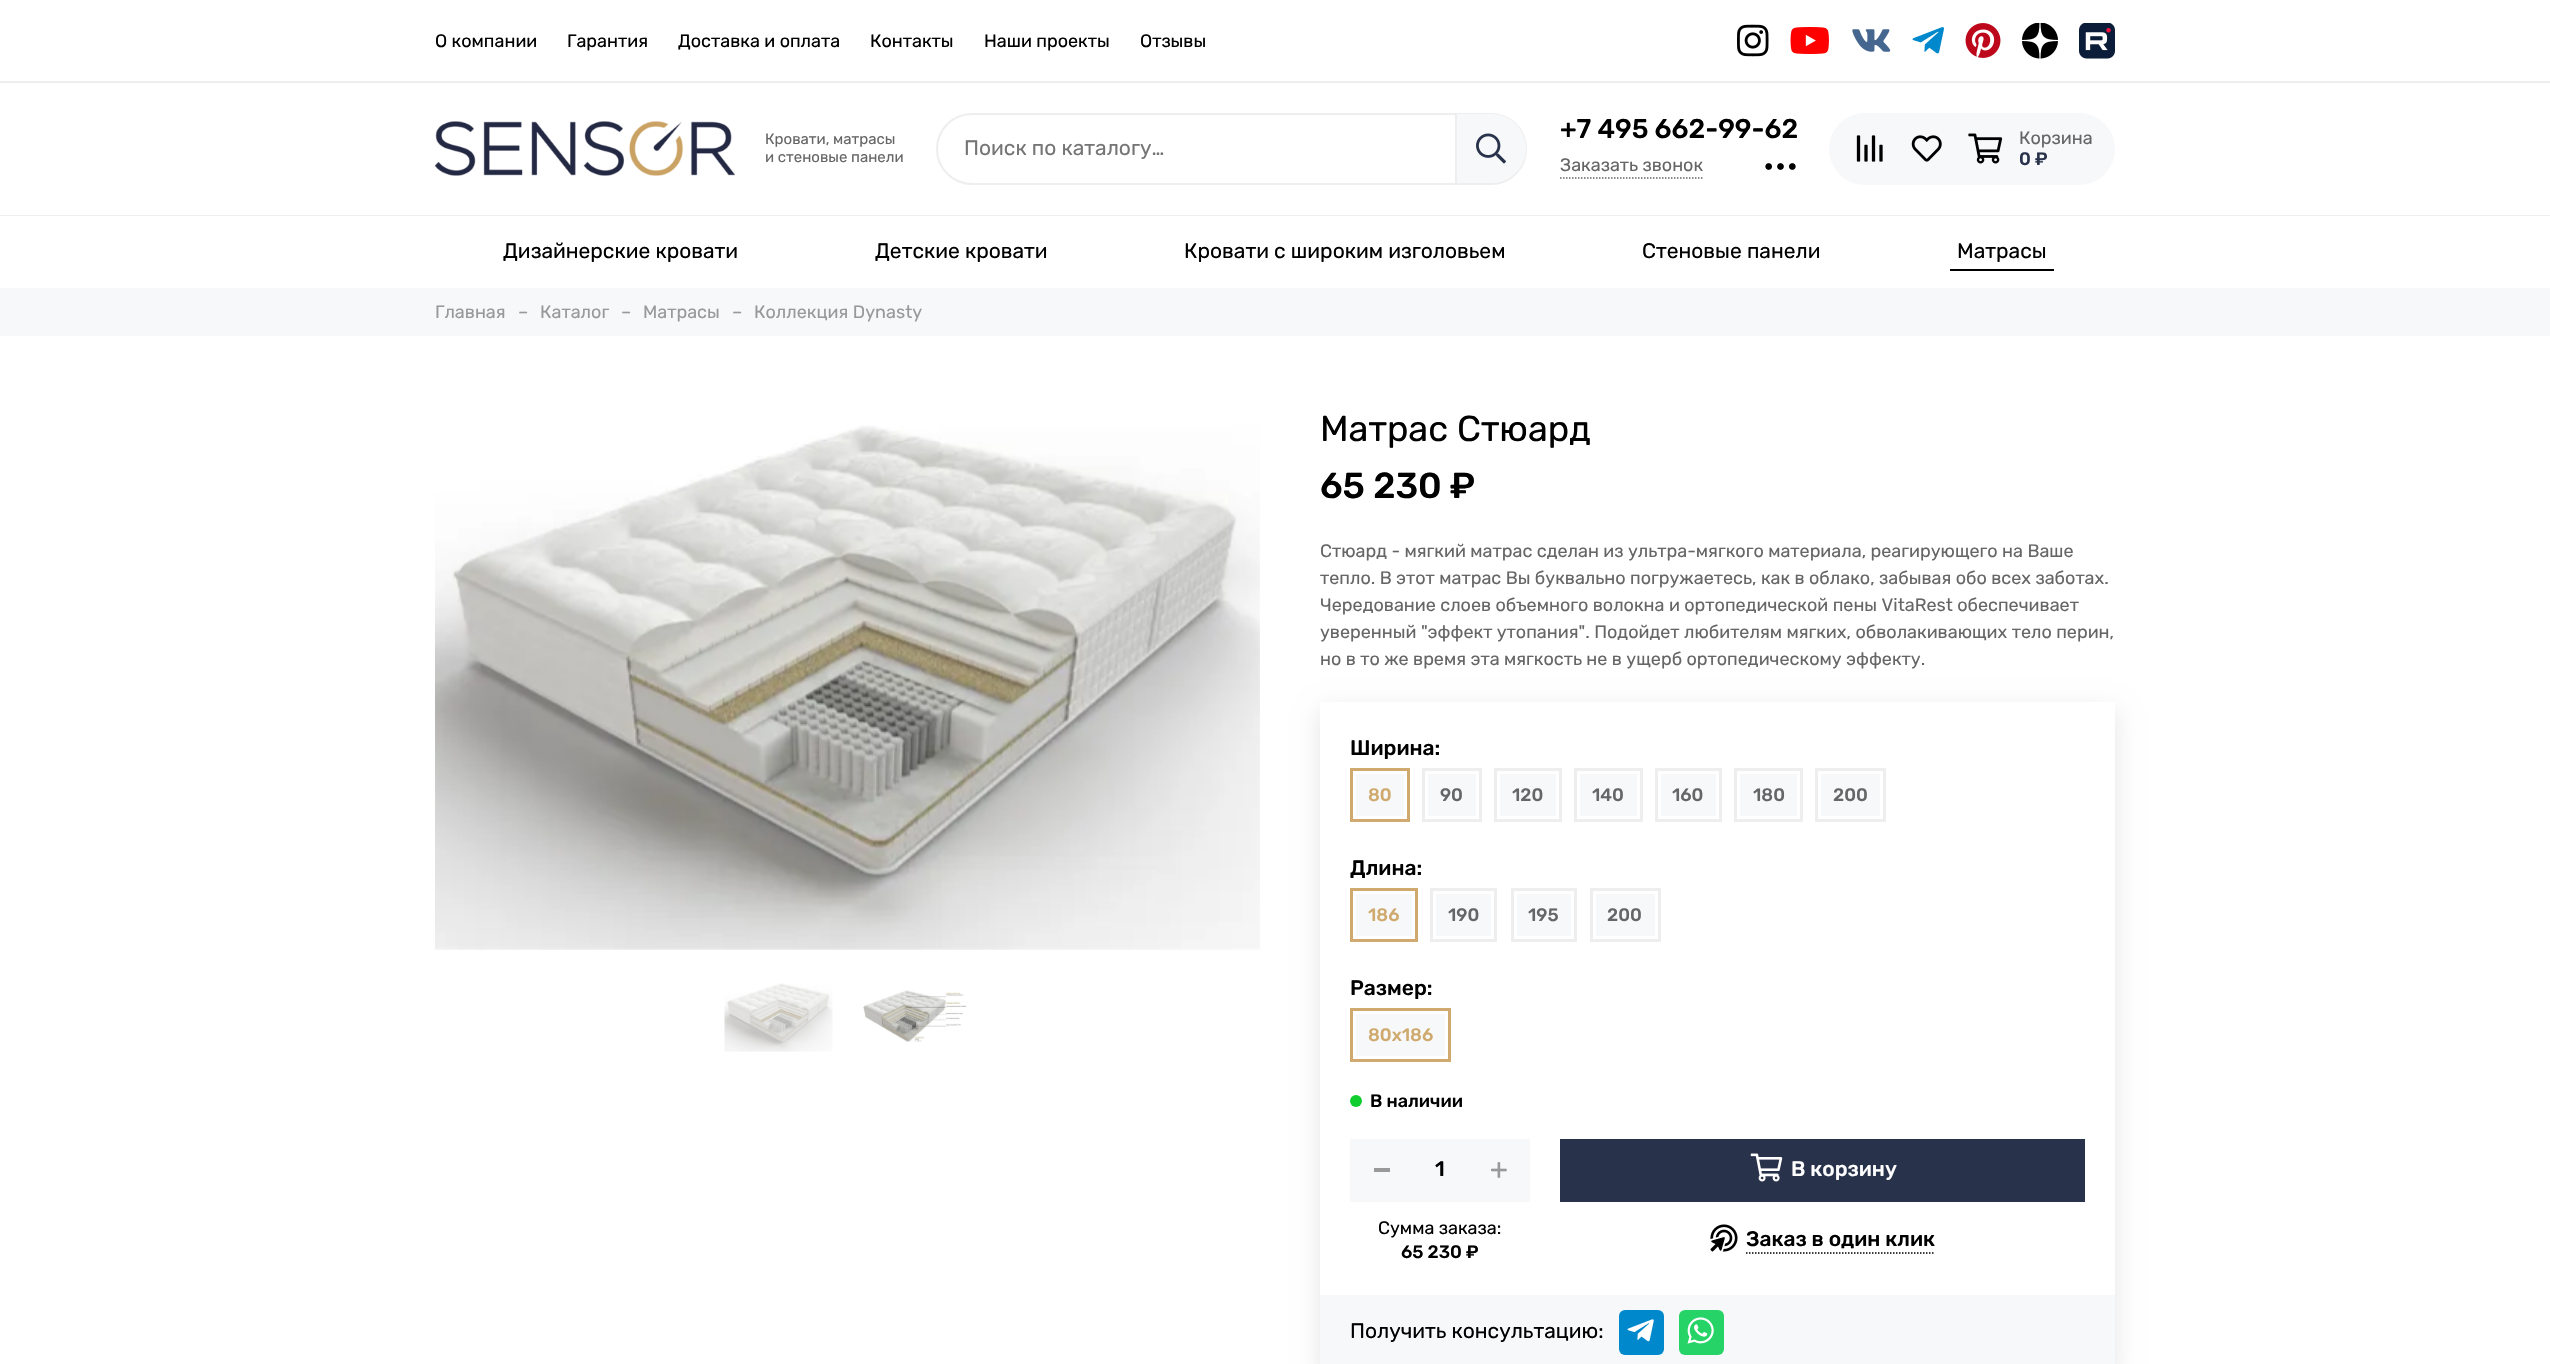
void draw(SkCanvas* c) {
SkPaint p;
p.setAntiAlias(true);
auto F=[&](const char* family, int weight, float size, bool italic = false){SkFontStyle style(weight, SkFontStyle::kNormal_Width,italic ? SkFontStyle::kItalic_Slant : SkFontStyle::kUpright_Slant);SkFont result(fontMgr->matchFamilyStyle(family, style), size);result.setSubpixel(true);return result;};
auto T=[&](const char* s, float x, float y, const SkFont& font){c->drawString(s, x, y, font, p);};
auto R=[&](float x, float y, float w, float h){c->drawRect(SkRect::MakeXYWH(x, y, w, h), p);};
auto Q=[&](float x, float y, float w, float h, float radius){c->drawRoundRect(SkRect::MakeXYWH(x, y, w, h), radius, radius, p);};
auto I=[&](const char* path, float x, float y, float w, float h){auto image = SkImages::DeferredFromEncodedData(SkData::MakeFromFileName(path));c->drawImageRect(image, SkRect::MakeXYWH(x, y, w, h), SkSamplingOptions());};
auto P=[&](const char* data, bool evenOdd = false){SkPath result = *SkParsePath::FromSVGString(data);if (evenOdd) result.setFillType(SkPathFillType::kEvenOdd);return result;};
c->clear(0xffffffff);
p.setColor(0xffeeeeee);
R(0,81,2550,2);
auto f1 = F("Rubik",400,18);
p.setColor(0xff000000);
T("О компании",435,47,f1);
T("Гарантия",567,47,f1);
T("Доставка и оплата",678,47,f1);
T("Контакты",870,47,f1);
T("Наши проекты",984,47,f1);
T("Отзывы",1140,47,f1);
I("1.png",1737,24,32,33);
I("2.png",1790,27,39,27);
I("3.png",1852,29,39,23);
I("4.png",1912,27,32,27);
I("5.png",1965,23,36,35);
I("6.png",2022,23,36,36);
I("7.png",2079,23,36,36);
I("8.png",435,121,300,55);
auto f2 = F("Rubik",400,15);
p.setColor(0xff666666);
T("Кровати, матрасы",765,144,f2);
T("и стеновые панели",765,162,f2);
p.setStroke(true);
p.setStrokeWidth(2);
p.setColor(0xffeeeeee);
c->drawRoundRect(SkRect::MakeXYWH(937,114,589,70),35,35,p);
auto f3 = F("Rubik",400,21);
p.setStroke(false);
p.setColor(0xff757575);
T("Поиск по каталогу…",964,155,f3);
p.setColor(0xfff7f8fa);
c->drawPath(P("M1455 114h36.5c19 0 34.5 15.5 34.5 34.5c0 19-15.5 34.5-34.5 34.5h-36.5z"),p);
p.setColor(0xffeeeeee);
R(1455,114,2,69);
I("9.png",1476,133,30,31);
auto f4 = F("Rubik",500,27);
p.setColor(0xff000000);
T("+7 495 662-99-62",1560,138,f4);
p.setStroke(true);
p.setStrokeWidth(1.5);
p.setColor(0xff666666);
p.setPathEffect(SkDashPathEffect::Make({{1.5f,1.5f}}, 0));
c->drawPath(P("M1560 178h144"),p);
p.setPathEffect(nullptr);
p.setStroke(false);
T("Заказать звонок",1560,171,f1);
I("10.png",1765,163,31,7);
p.setColor(0xfff7f8fa);
Q(1829,113,286,72,36);
I("11.png",1856,135,27,27);
I("12.png",1911,135,31,27);
I("13.png",1968,133,35,31);
p.setColor(0xff666666);
T("Корзина",2019,144,f1);
auto f5 = F("Rubik",500,18);
p.setColor(0xff28324a);
T("0 ₽",2019,165,f5);
p.setColor(0xffeeeeee);
R(0,215,2550,1);
p.setColor(0xff000000);
T("Дизайнерские кровати",503,258,f3);
T("Детские кровати",875,258,f3);
T("Кровати с широким изголовьем",1184,258,f3);
T("Стеновые панели",1642,258,f3);
T("Матрасы",1957,258,f3);
R(1950,269,104,2);
p.setColor(0xfff7f8fa);
R(0,288,2550,48);
p.setColor(0xff999999);
T("Главная",435,318,f1);
T("–",518,318,f1);
T("Каталог",540,318,f1);
T("–",621,318,f1);
T("Матрасы",643,318,f1);
T("–",732,318,f1);
T("Коллекция Dynasty",754,318,f1);
I("14.png",435,425,825,525);
I("15.png",724,983,109,69);
I("16.png",863,990,104,52);
auto f6 = F("Rubik",400,36);
p.setColor(0xff000000);
T("Матрас Стюард",1320,441,f6);
auto f7 = F("Rubik",500,36);
T("65 230 ₽",1320,498,f7);
p.setColor(0xff666666);
T("Стюард - мягкий матрас сделан из ультра-мягкого материала, реагирующего на Ваше",1320,557,f1);
T("тепло. В этот матрас Вы буквально погружаетесь, как в облако, забывая обо всех заботах.",1320,584,f1);
T("Чередование слоев объемного волокна и ортопедической пены VitaRest обеспечивает",1320,611,f1);
T("уверенный \"эффект утопания\". Подойдет любителям мягких, обволакивающих тело перин,",1320,638,f1);
T("но в то же время эта мягкость не в ущерб ортопедическому эффекту.",1320,665,f1);
c->save();
c->clipPath(P("M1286 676h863v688h-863zm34 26h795v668h-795z",true),true);
p.setColor(0x1a000000);
p.setMaskFilter(SkMaskFilter::MakeBlur(kNormal_SkBlurStyle, 11));
c->drawRect(SkRect::MakeXYWH(1320,710,795,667),p);
p.setMaskFilter(nullptr);
c->restore();
auto f8 = F("Rubik",500,21);
p.setColor(0xff000000);
T("Ширина:",1350,755,f8);
p.setColor(0xfff7f8fa);
R(1356,774,48,42);
p.setStroke(true);
p.setStrokeWidth(3);
p.setColor(0xffcfa96d);
c->drawRect(SkRect::MakeXYWH(1351.5,769.5,57,51),p);
p.setStroke(false);
T("80",1368,801,f5);
p.setColor(0xfff7f8fa);
R(1428,774,48,42);
p.setStroke(true);
p.setColor(0xffeeeeee);
c->drawRect(SkRect::MakeXYWH(1423.5,769.5,57,51),p);
p.setStroke(false);
p.setColor(0xff666666);
T("90",1440,801,f5);
p.setColor(0xfff7f8fa);
R(1500,774,56,42);
p.setStroke(true);
p.setColor(0xffeeeeee);
c->drawRect(SkRect::MakeXYWH(1495.5,769.5,65,51),p);
p.setStroke(false);
p.setColor(0xff666666);
T("120",1512,801,f5);
p.setColor(0xfff7f8fa);
R(1580,774,57,42);
p.setStroke(true);
p.setColor(0xffeeeeee);
c->drawRect(SkRect::MakeXYWH(1575.5,769.5,66,51),p);
p.setStroke(false);
p.setColor(0xff666666);
T("140",1592,801,f5);
p.setColor(0xfff7f8fa);
R(1661,774,55,42);
p.setStroke(true);
p.setColor(0xffeeeeee);
c->drawRect(SkRect::MakeXYWH(1656.5,769.5,64,51),p);
p.setStroke(false);
p.setColor(0xff666666);
T("160",1672,801,f5);
p.setColor(0xfff7f8fa);
R(1740,774,57,42);
p.setStroke(true);
p.setColor(0xffeeeeee);
c->drawRect(SkRect::MakeXYWH(1735.5,769.5,66,51),p);
p.setStroke(false);
p.setColor(0xff666666);
T("180",1753,801,f5);
p.setColor(0xfff7f8fa);
R(1821,774,59,42);
p.setStroke(true);
p.setColor(0xffeeeeee);
c->drawRect(SkRect::MakeXYWH(1816.5,769.5,68,51),p);
p.setStroke(false);
p.setColor(0xff666666);
T("200",1833,801,f5);
p.setColor(0xff000000);
T("Длина:",1350,875,f8);
p.setColor(0xfff7f8fa);
R(1356,894,56,42);
p.setStroke(true);
p.setColor(0xffcfa96d);
c->drawRect(SkRect::MakeXYWH(1351.5,889.5,65,51),p);
p.setStroke(false);
T("186",1368,921,f5);
p.setColor(0xfff7f8fa);
R(1436,894,55,42);
p.setStroke(true);
p.setColor(0xffeeeeee);
c->drawRect(SkRect::MakeXYWH(1431.5,889.5,64,51),p);
p.setStroke(false);
p.setColor(0xff666666);
T("190",1448,921,f5);
p.setColor(0xfff7f8fa);
R(1517,894,54,42);
p.setStroke(true);
p.setColor(0xffeeeeee);
c->drawRect(SkRect::MakeXYWH(1512.5,889.5,63,51),p);
p.setStroke(false);
p.setColor(0xff666666);
T("195",1528,921,f5);
p.setColor(0xfff7f8fa);
R(1596,894,59,42);
p.setStroke(true);
p.setColor(0xffeeeeee);
c->drawRect(SkRect::MakeXYWH(1591.5,889.5,68,51),p);
p.setStroke(false);
p.setColor(0xff666666);
T("200",1607,921,f5);
p.setColor(0xff000000);
T("Размер:",1350,995,f8);
p.setColor(0xfff7f8fa);
R(1356,1014,89,42);
p.setStroke(true);
p.setColor(0xffcfa96d);
c->drawRect(SkRect::MakeXYWH(1351.5,1009.5,98,51),p);
p.setStroke(false);
T("80x186",1368,1041,f5);
p.setColor(0xff0fce2d);
c->drawCircle(1356,1101,6,p);
p.setColor(0xff000000);
T("В наличии",1370,1107,f5);
p.setColor(0xfff7f8fa);
R(1350,1139,180,63);
p.setColor(0xff999999);
R(1374,1168,16,4);
p.setColor(0xff000000);
T("1",1435,1176,f8);
I("17.png",1491,1162,16,16);
T("Сумма заказа:",1378,1234,f1);
T("65 230 ₽",1401,1258,f5);
p.setColor(0xff28324a);
R(1560,1139,525,63);
I("18.png",1750,1153,33,29);
p.setColor(0xffffffff);
T("В корзину",1791,1176,f8);
I("19.png",1710,1224,28,28);
p.setColor(0xff000000);
T("Заказ в один клик",1746,1246,f8);
p.setStroke(true);
p.setStrokeWidth(1.5);
p.setPathEffect(SkDashPathEffect::Make({{1.5f,1.5f}}, 0));
c->drawPath(P("M1746 1253h189"),p);
p.setPathEffect(nullptr);
p.setStroke(false);
p.setColor(0xfff7f8fa);
R(1320,1295,795,69);
p.setColor(0xff000000);
T("Получить консультацию:",1350,1338,f3);
p.setColor(0xff0088cc);
Q(1619,1310,45,45,6);
I("20.png",1627,1319,27,23);
p.setColor(0xff25d366);
Q(1679,1310,45,45,6);
I("21.png",1687,1317,27,27);
}
